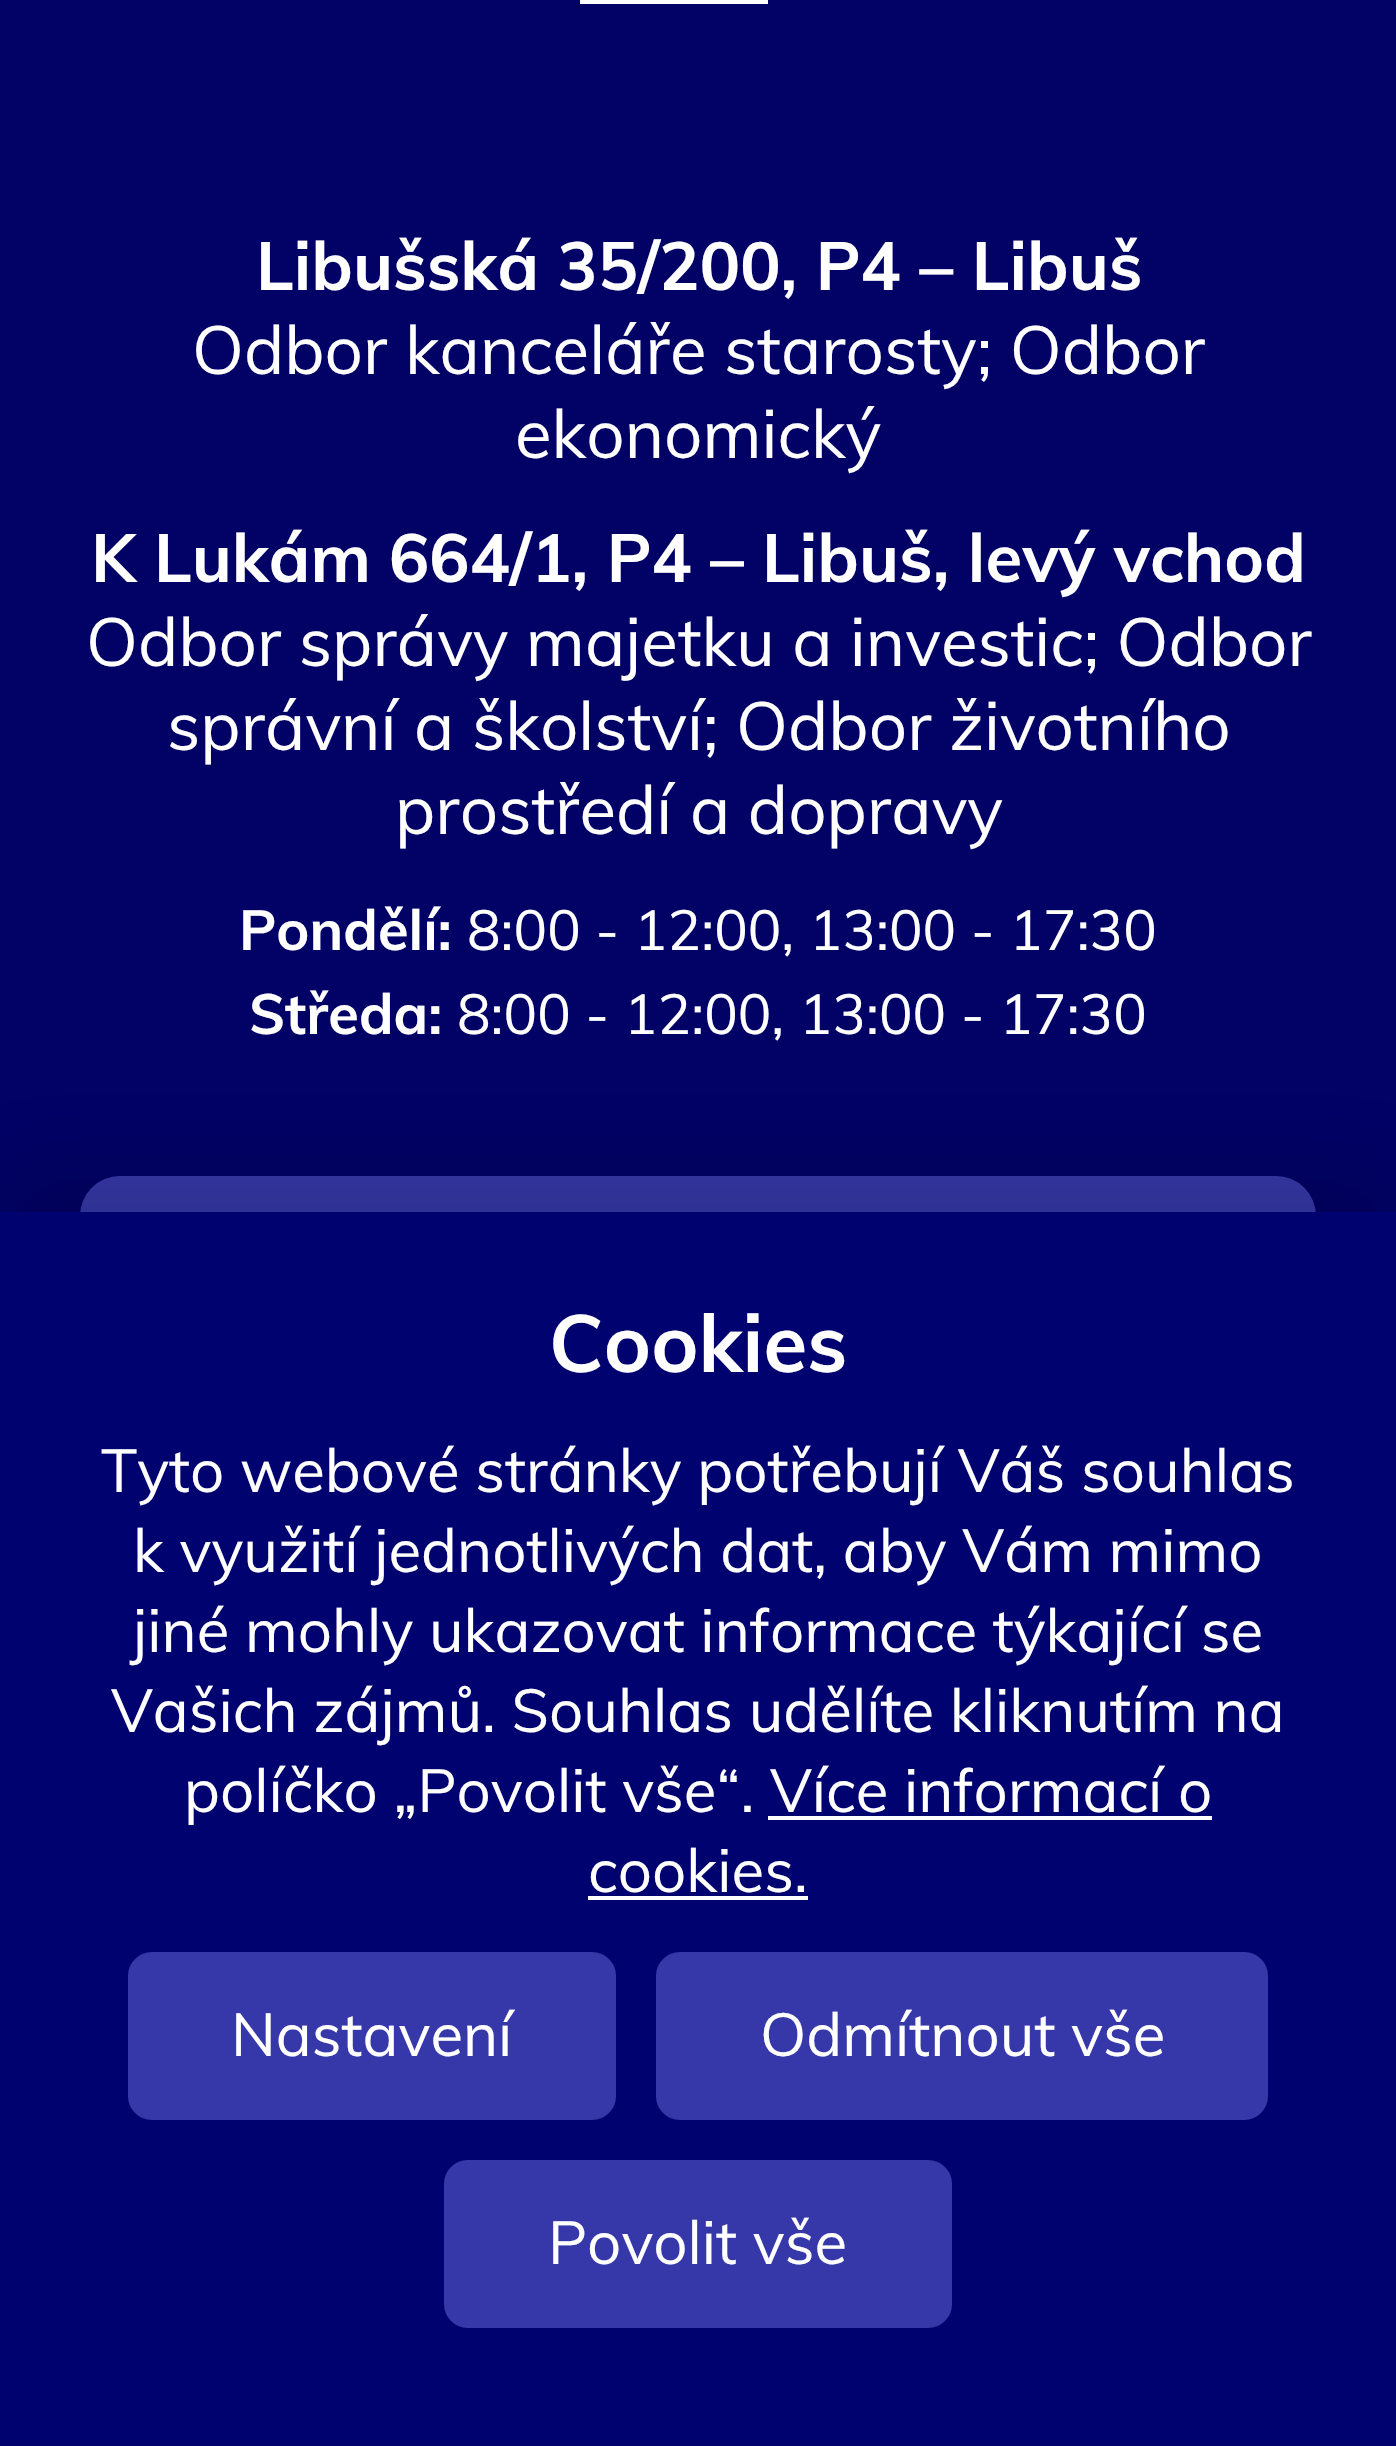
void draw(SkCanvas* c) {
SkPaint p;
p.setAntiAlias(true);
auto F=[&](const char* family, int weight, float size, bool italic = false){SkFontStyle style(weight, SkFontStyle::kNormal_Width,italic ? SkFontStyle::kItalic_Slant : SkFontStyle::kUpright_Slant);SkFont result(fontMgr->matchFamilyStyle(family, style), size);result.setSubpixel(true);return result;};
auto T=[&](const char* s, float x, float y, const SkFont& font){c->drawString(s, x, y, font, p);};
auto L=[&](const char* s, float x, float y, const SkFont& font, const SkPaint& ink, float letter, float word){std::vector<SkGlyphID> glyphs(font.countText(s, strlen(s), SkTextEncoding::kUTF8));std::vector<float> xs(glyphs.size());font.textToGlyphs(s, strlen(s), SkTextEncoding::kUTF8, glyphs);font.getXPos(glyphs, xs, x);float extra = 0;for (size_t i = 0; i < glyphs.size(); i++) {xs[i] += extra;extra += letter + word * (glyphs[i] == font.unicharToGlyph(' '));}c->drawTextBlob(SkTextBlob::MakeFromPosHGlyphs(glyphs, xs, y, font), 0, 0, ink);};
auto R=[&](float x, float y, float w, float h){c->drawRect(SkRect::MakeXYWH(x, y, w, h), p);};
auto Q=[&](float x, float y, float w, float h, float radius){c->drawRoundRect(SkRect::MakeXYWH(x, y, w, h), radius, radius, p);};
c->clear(0xff010166);
p.setColor(0xffffffff);
R(580,0,188,4);
auto f1 = F("Muli",700,67.25);
T("Libušská 35/200, P4 – Libuš",256,290,f1);
auto f2 = F("Muli",400,67.25);
T("Odbor kanceláře starosty; Odbor",192,374,f2);
T("ekonomický",515,458,f2);
L("K Lukám 664/1, P4 – Libuš, levý vchod",91,582,f1,p,0,-.25);
L("Odbor správy majetku a investic; Odbor",86,666,f2,p,0,-.25);
T("správní a školství; Odbor životního",167,750,f2);
T("prostředí a dopravy",395,834,f2);
auto f3 = F("Muli",700,56);
T("Pondělí:",239,950,f3);
auto f4 = F("Muli",400,56);
T("8:00 - 12:00, 13:00 - 17:30",467,950,f4);
T("Středa:",249,1034,f3);
T("8:00 - 12:00, 13:00 - 17:30",457,1034,f4);
p.setColor(0xff3638a9);
Q(80,1176,1236,200,40);
p.setColor(0x26000000);
p.setMaskFilter(SkMaskFilter::MakeBlur(kNormal_SkBlurStyle, 40));
c->drawRect(SkRect::MakeXYWH(0,1172,1396,1236),p);
p.setMaskFilter(nullptr);
p.setColor(0xff00026f);
R(0,1212,1396,1234);
auto f5 = F("Muli",700,80);
p.setColor(0xffffffff);
T("Cookies",549,1372,f5);
auto f6 = F("Muli",400,60);
T("Tyto webové stránky potřebují Váš souhlas",101,1492,f6);
T("k využití jednotlivých dat, aby Vám mimo",133,1572,f6);
T("jiné mohly ukazovat informace týkající se",133,1652,f6);
T("Vašich zájmů. Souhlas udělíte kliknutím na",111,1732,f6);
T("políčko „Povolit vše“. Více informací o",184,1812,f6);
T("cookies.",588,1892,f6);
R(768,1816,444,4);
R(588,1896,220,4);
p.setColor(0xff3638a9);
c->drawRoundRect(SkRect::MakeXYWH(130,1954,484,164),22,22,p);
p.setStroke(true);
p.setStrokeWidth(4);
c->drawRoundRect(SkRect::MakeXYWH(130,1954,484,164),22,22,p);
p.setStroke(false);
p.setColor(0xffffffff);
T("Nastavení",231,2056,f6);
p.setColor(0xff3638a9);
c->drawRoundRect(SkRect::MakeXYWH(658,1954,608,164),22,22,p);
p.setStroke(true);
c->drawRoundRect(SkRect::MakeXYWH(658,1954,608,164),22,22,p);
p.setStroke(false);
p.setColor(0xffffffff);
T("Odmítnout vše",760,2056,f6);
p.setColor(0xff3638a9);
c->drawRoundRect(SkRect::MakeXYWH(446,2162,504,164),22,22,p);
p.setStroke(true);
c->drawRoundRect(SkRect::MakeXYWH(446,2162,504,164),22,22,p);
p.setStroke(false);
p.setColor(0xffffffff);
T("Povolit vše",548,2264,f6);
}
